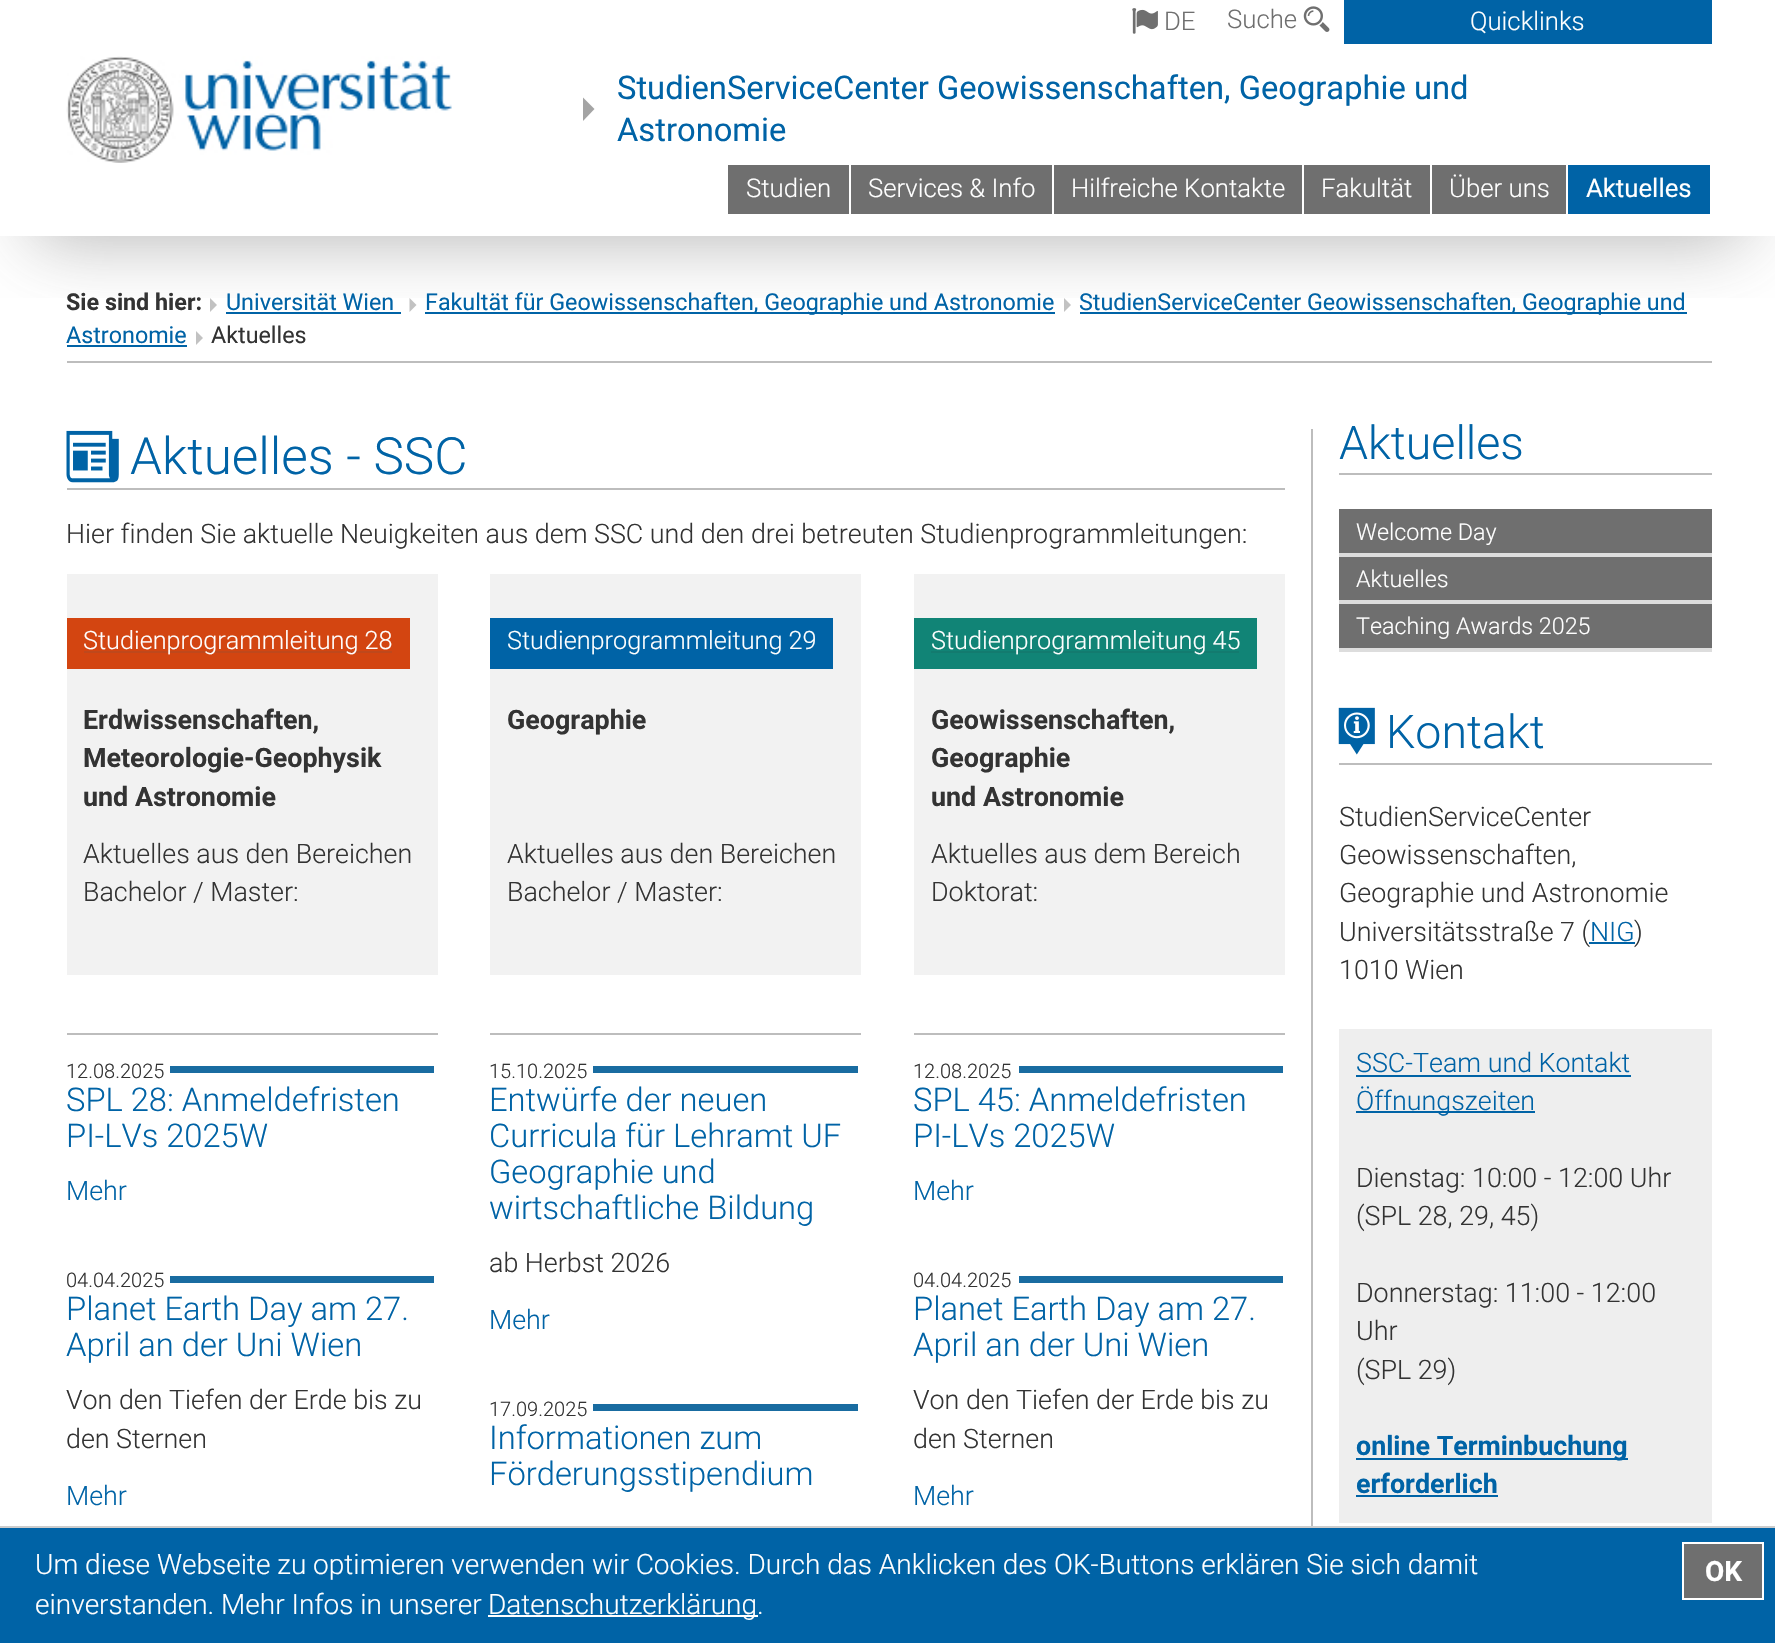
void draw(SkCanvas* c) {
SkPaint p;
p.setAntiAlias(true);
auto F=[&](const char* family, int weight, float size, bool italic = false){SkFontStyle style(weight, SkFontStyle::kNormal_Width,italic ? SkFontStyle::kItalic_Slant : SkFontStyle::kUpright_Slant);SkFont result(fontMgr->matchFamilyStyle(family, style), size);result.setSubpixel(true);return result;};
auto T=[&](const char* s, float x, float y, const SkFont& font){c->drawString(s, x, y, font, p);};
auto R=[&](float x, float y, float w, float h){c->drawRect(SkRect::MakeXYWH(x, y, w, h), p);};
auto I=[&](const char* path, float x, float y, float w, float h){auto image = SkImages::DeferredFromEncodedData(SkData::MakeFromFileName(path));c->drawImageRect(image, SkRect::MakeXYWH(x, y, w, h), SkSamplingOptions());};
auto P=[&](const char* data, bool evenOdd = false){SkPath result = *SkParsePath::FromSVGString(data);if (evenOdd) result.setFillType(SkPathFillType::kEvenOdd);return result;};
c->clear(0xffffffff);
p.setColor(0xffc2c2c2);
c->drawPath(P("M210 298v14l7-7z"),p);
p.setColor(0xff0063a6);
R(226,312,175,2);
p.setColor(0xffc2c2c2);
c->drawPath(P("M409.5 298v14l7-7z"),p);
p.setColor(0xff0063a6);
R(425,312,630,2);
p.setColor(0xffc2c2c2);
c->drawPath(P("M1064 298v14l7-7z"),p);
p.setColor(0xff0063a6);
R(1080,312,607,2);
R(67,345,120,2);
p.setColor(0xffc2c2c2);
c->drawPath(P("M196 331v14l7-7z"),p);
c->save();
c->clipRect(SkRect::MakeXYWH(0,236,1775,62));
p.setColor(0x66464646);
p.setMaskFilter(SkMaskFilter::MakeBlur(kNormal_SkBlurStyle, 35));
c->drawRect(SkRect::MakeXYWH(33,25,1712,215),p);
p.setMaskFilter(nullptr);
c->restore();
p.setColor(0xffffffff);
R(0,0,23,236);
R(1755,0,20,236);
I("1.png",1132,8,26,26);
auto f1 = F("Roboto",300,25.75);
p.setColor(0xff6f6f6f);
T("DE",1164,30,f1);
T("Suche",1227,28,f1);
I("2.png",1303,6,27,26);
p.setColor(0xff0063a6);
R(1344,0,368,44);
p.setColor(0xffffffff);
T("Quicklinks",1470,30,f1);
I("3.png",66,56,386,107);
p.setColor(0xffa4a4a4);
c->drawPath(P("M583 97.5v23.5l11.5-12z"),p);
auto f2 = F("Roboto",400,32.7);
p.setColor(0xff0063a6);
T("StudienServiceCenter Geowissenschaften, Geographie und",617,99,f2);
T("Astronomie",617,141,f2);
p.setColor(0xff6f6f6f);
R(728,165,121,49);
p.setColor(0xffffffff);
T("Studien",746,197,f1);
p.setColor(0xff6f6f6f);
R(851,165,201,49);
p.setColor(0xffffffff);
T("Services & Info",868,197,f1);
p.setColor(0xff6f6f6f);
R(1054,165,248,49);
p.setColor(0xffffffff);
T("Hilfreiche Kontakte",1071,197,f1);
p.setColor(0xff6f6f6f);
R(1304,165,126,49);
p.setColor(0xffffffff);
T("Fakultät",1321,197,f1);
p.setColor(0xff6f6f6f);
R(1432,165,134,49);
p.setColor(0xffffffff);
T("Über uns",1449,197,f1);
p.setColor(0xff0063a6);
R(1568,165,142,49);
auto f3 = F("Roboto",400,25.75);
p.setColor(0xffffffff);
T("Aktuelles",1586,197,f3);
auto f4 = F("Roboto",700,23.3);
p.setColor(0xff333333);
T("Sie sind hier:",66,310,f4);
auto f5 = F("Roboto",400,23.3);
p.setColor(0xff0063a6);
T("Universität Wien",226,310,f5);
T("Fakultät für Geowissenschaften, Geographie und Astronomie",425,310,f5);
T("StudienServiceCenter Geowissenschaften, Geographie und",1079,310,f5);
T("Astronomie",66,343,f5);
p.setColor(0xff333333);
T("Aktuelles",211,343,f5);
p.setColor(0xffbdbdbd);
R(67,361,1645,2);
R(1311,429,2,1097);
R(67,488,1218,2);
I("4.png",66,430,53,53);
auto f6 = F("Roboto",300,51.25);
p.setColor(0xff0063a6);
T("Aktuelles - SSC",130,474,f6);
auto f7 = F("Roboto",300,26.85);
p.setColor(0xff333333);
T("Hier finden Sie aktuelle Neuigkeiten aus dem SSC und den drei betreuten Studienprogrammleitungen:",66,543,f7);
p.setColor(0xfff2f2f2);
R(67,574,371,401);
p.setColor(0xffd34511);
R(67,618,343,51);
p.setColor(0xffbf481c);
R(84,651,308,2);
auto f8 = F("Roboto",300,25.25);
p.setColor(0xffffffff);
T("Studienprogrammleitung 28",83,649,f8);
auto f9 = F("Roboto",700,26.85);
p.setColor(0xff333333);
T("Erdwissenschaften,",83,729,f9);
T("Meteorologie-Geophysik",83,767,f9);
T("und Astronomie",83,806,f9);
T("Aktuelles aus den Bereichen",83,863,f7);
T("Bachelor / Master:",83,901,f7);
p.setColor(0xffbdbdbd);
R(67,1033,371,2);
auto f10 = F("Roboto",300,20);
p.setColor(0xff333333);
T("12.08.2025",66,1078,f10);
p.setColor(0xff196ca1);
R(170,1066,264,7);
auto f11 = F("Roboto",300,32.7);
p.setColor(0xff0063a6);
T("SPL 28: Anmeldefristen",66,1111,f11);
T("PI-LVs 2025W",66,1147,f11);
T("Mehr",66,1200,f7);
c->save();
c->clipRect(SkRect::MakeXYWH(67,1265,371,28));
p.setColor(0xff333333);
T("04.04.2025",66,1287,f10);
c->restore();
p.setColor(0xff196ca1);
R(170,1276,264,7);
p.setColor(0xff0063a6);
T("Planet Earth Day am 27.",66,1320,f11);
T("April an der Uni Wien",66,1356,f11);
p.setColor(0xff333333);
T("Von den Tiefen der Erde bis zu",66,1409,f7);
T("den Sternen",66,1448,f7);
p.setColor(0xff0063a6);
T("Mehr",66,1505,f7);
p.setColor(0xfff2f2f2);
R(490,574,371,401);
p.setColor(0xff0063a6);
R(490,618,343,51);
p.setColor(0xffffffff);
T("Studienprogrammleitung 29",507,649,f8);
p.setColor(0xff333333);
T("Geographie",507,729,f9);
T("Aktuelles aus den Bereichen",507,863,f7);
T("Bachelor / Master:",507,901,f7);
p.setColor(0xffbdbdbd);
R(490,1033,371,2);
p.setColor(0xff333333);
T("15.10.2025",489,1078,f10);
p.setColor(0xff196ca1);
R(593,1066,265,7);
p.setColor(0xff0063a6);
T("Entwürfe der neuen",489,1111,f11);
T("Curricula für Lehramt UF",489,1147,f11);
T("Geographie und",489,1183,f11);
T("wirtschaftliche Bildung",489,1219,f11);
p.setColor(0xff333333);
T("ab Herbst 2026",489,1272,f7);
p.setColor(0xff0063a6);
T("Mehr",489,1329,f7);
p.setColor(0xff333333);
T("17.09.2025",489,1416,f10);
p.setColor(0xff196ca1);
R(593,1404,265,7);
p.setColor(0xff0063a6);
T("Informationen zum",489,1449,f11);
T("Förderungsstipendium",489,1485,f11);
p.setColor(0xfff2f2f2);
R(914,574,371,401);
p.setColor(0xff118476);
R(914,618,343,51);
p.setColor(0xff137b6f);
R(931,651,308,2);
p.setColor(0xffffffff);
T("Studienprogrammleitung 45",931,649,f8);
p.setColor(0xff333333);
T("Geowissenschaften,",931,729,f9);
T("Geographie",931,767,f9);
T("und Astronomie",931,806,f9);
T("Aktuelles aus dem Bereich",931,863,f7);
T("Doktorat:",931,901,f7);
p.setColor(0xffbdbdbd);
R(914,1033,371,2);
p.setColor(0xff333333);
T("12.08.2025",913,1078,f10);
p.setColor(0xff196ca1);
R(1019,1066,264,7);
p.setColor(0xff0063a6);
T("SPL 45: Anmeldefristen",913,1111,f11);
T("PI-LVs 2025W",913,1147,f11);
T("Mehr",913,1200,f7);
p.setColor(0xff333333);
T("04.04.2025",913,1287,f10);
p.setColor(0xff196ca1);
R(1019,1276,264,7);
p.setColor(0xff0063a6);
T("Planet Earth Day am 27.",913,1320,f11);
T("April an der Uni Wien",913,1356,f11);
p.setColor(0xff333333);
T("Von den Tiefen der Erde bis zu",913,1409,f7);
T("den Sternen",913,1448,f7);
p.setColor(0xff0063a6);
T("Mehr",913,1505,f7);
p.setColor(0xffbdbdbd);
R(1339,473,373,2);
auto f12 = F("Roboto",300,46.5);
p.setColor(0xff0063a6);
T("Aktuelles",1339,459,f12);
p.setColor(0xff6f6f6f);
R(1339,509,373,44);
p.setColor(0xffdddddd);
R(1339,553,373,4);
auto f13 = F("Roboto",300,23.3);
p.setColor(0xffffffff);
T("Welcome Day",1356,540,f13);
p.setColor(0xff6f6f6f);
R(1339,557,373,43);
p.setColor(0xffdddddd);
R(1339,600,373,4);
p.setColor(0xffffffff);
T("Aktuelles",1356,587,f13);
p.setColor(0xff6f6f6f);
R(1339,604,373,44);
p.setColor(0xffdddddd);
R(1339,648,373,4);
p.setColor(0xffffffff);
T("Teaching Awards 2025",1356,634,f13);
p.setColor(0xffbdbdbd);
R(1339,763,373,2);
I("5.png",1338,707,37,48);
p.setColor(0xff0063a6);
T("Kontakt",1386,748,f12);
p.setColor(0xff333333);
T("StudienServiceCenter",1339,826,f7);
T("Geowissenschaften,",1339,864,f7);
T("Geographie und Astronomie",1339,902,f7);
T("Universitätsstraße 7 (",1339,941,f7);
p.setColor(0xff0063a6);
T("NIG",1590,941,f7);
R(1589,942,46,2);
p.setColor(0xff333333);
T(")",1634,941,f7);
T("1010 Wien",1339,979,f7);
p.setColor(0xffeeeeee);
R(1339,1029,373,494);
p.setColor(0xff0063a6);
T("SSC-Team und Kontakt",1356,1072,f7);
R(1356,1075,275,2);
R(1356,1111,179,2);
T("Öffnungszeiten",1356,1110,f7);
p.setColor(0xff333333);
T("Dienstag: 10:00 - 12:00 Uhr",1356,1187,f7);
T("(SPL 28, 29, 45)",1356,1225,f7);
T("Donnerstag: 11:00 - 12:00",1356,1302,f7);
T("Uhr",1356,1340,f7);
T("(SPL 29)",1356,1379,f7);
p.setColor(0xff0063a6);
R(1356,1458,272,2);
T("online Terminbuchung",1356,1455,f9);
T("erforderlich",1356,1493,f9);
R(1356,1495,142,2);
R(0,1528,1775,115);
p.setColor(0xffcccccc);
R(0,1526,1775,2);
auto f14 = F("Roboto",300,28);
p.setColor(0xffffffff);
T("Um diese Webseite zu optimieren verwenden wir Cookies. Durch das Anklicken des OK-Buttons erklären Sie sich damit",35,1574,f14);
T("einverstanden. Mehr Infos in unserer",35,1614,f14);
R(488,1615,270,2);
T("Datenschutzerklärung.",488,1614,f14);
p.setColor(0xff6f6f6f);
c->drawRect(SkRect::MakeXYWH(1683,1543,80,56),p);
p.setStroke(true);
p.setStrokeWidth(2);
p.setColor(0xffffffff);
c->drawRect(SkRect::MakeXYWH(1683,1543,80,56),p);
auto f15 = F("Roboto",700,28);
p.setStroke(false);
T("OK",1705,1581,f15);
}
